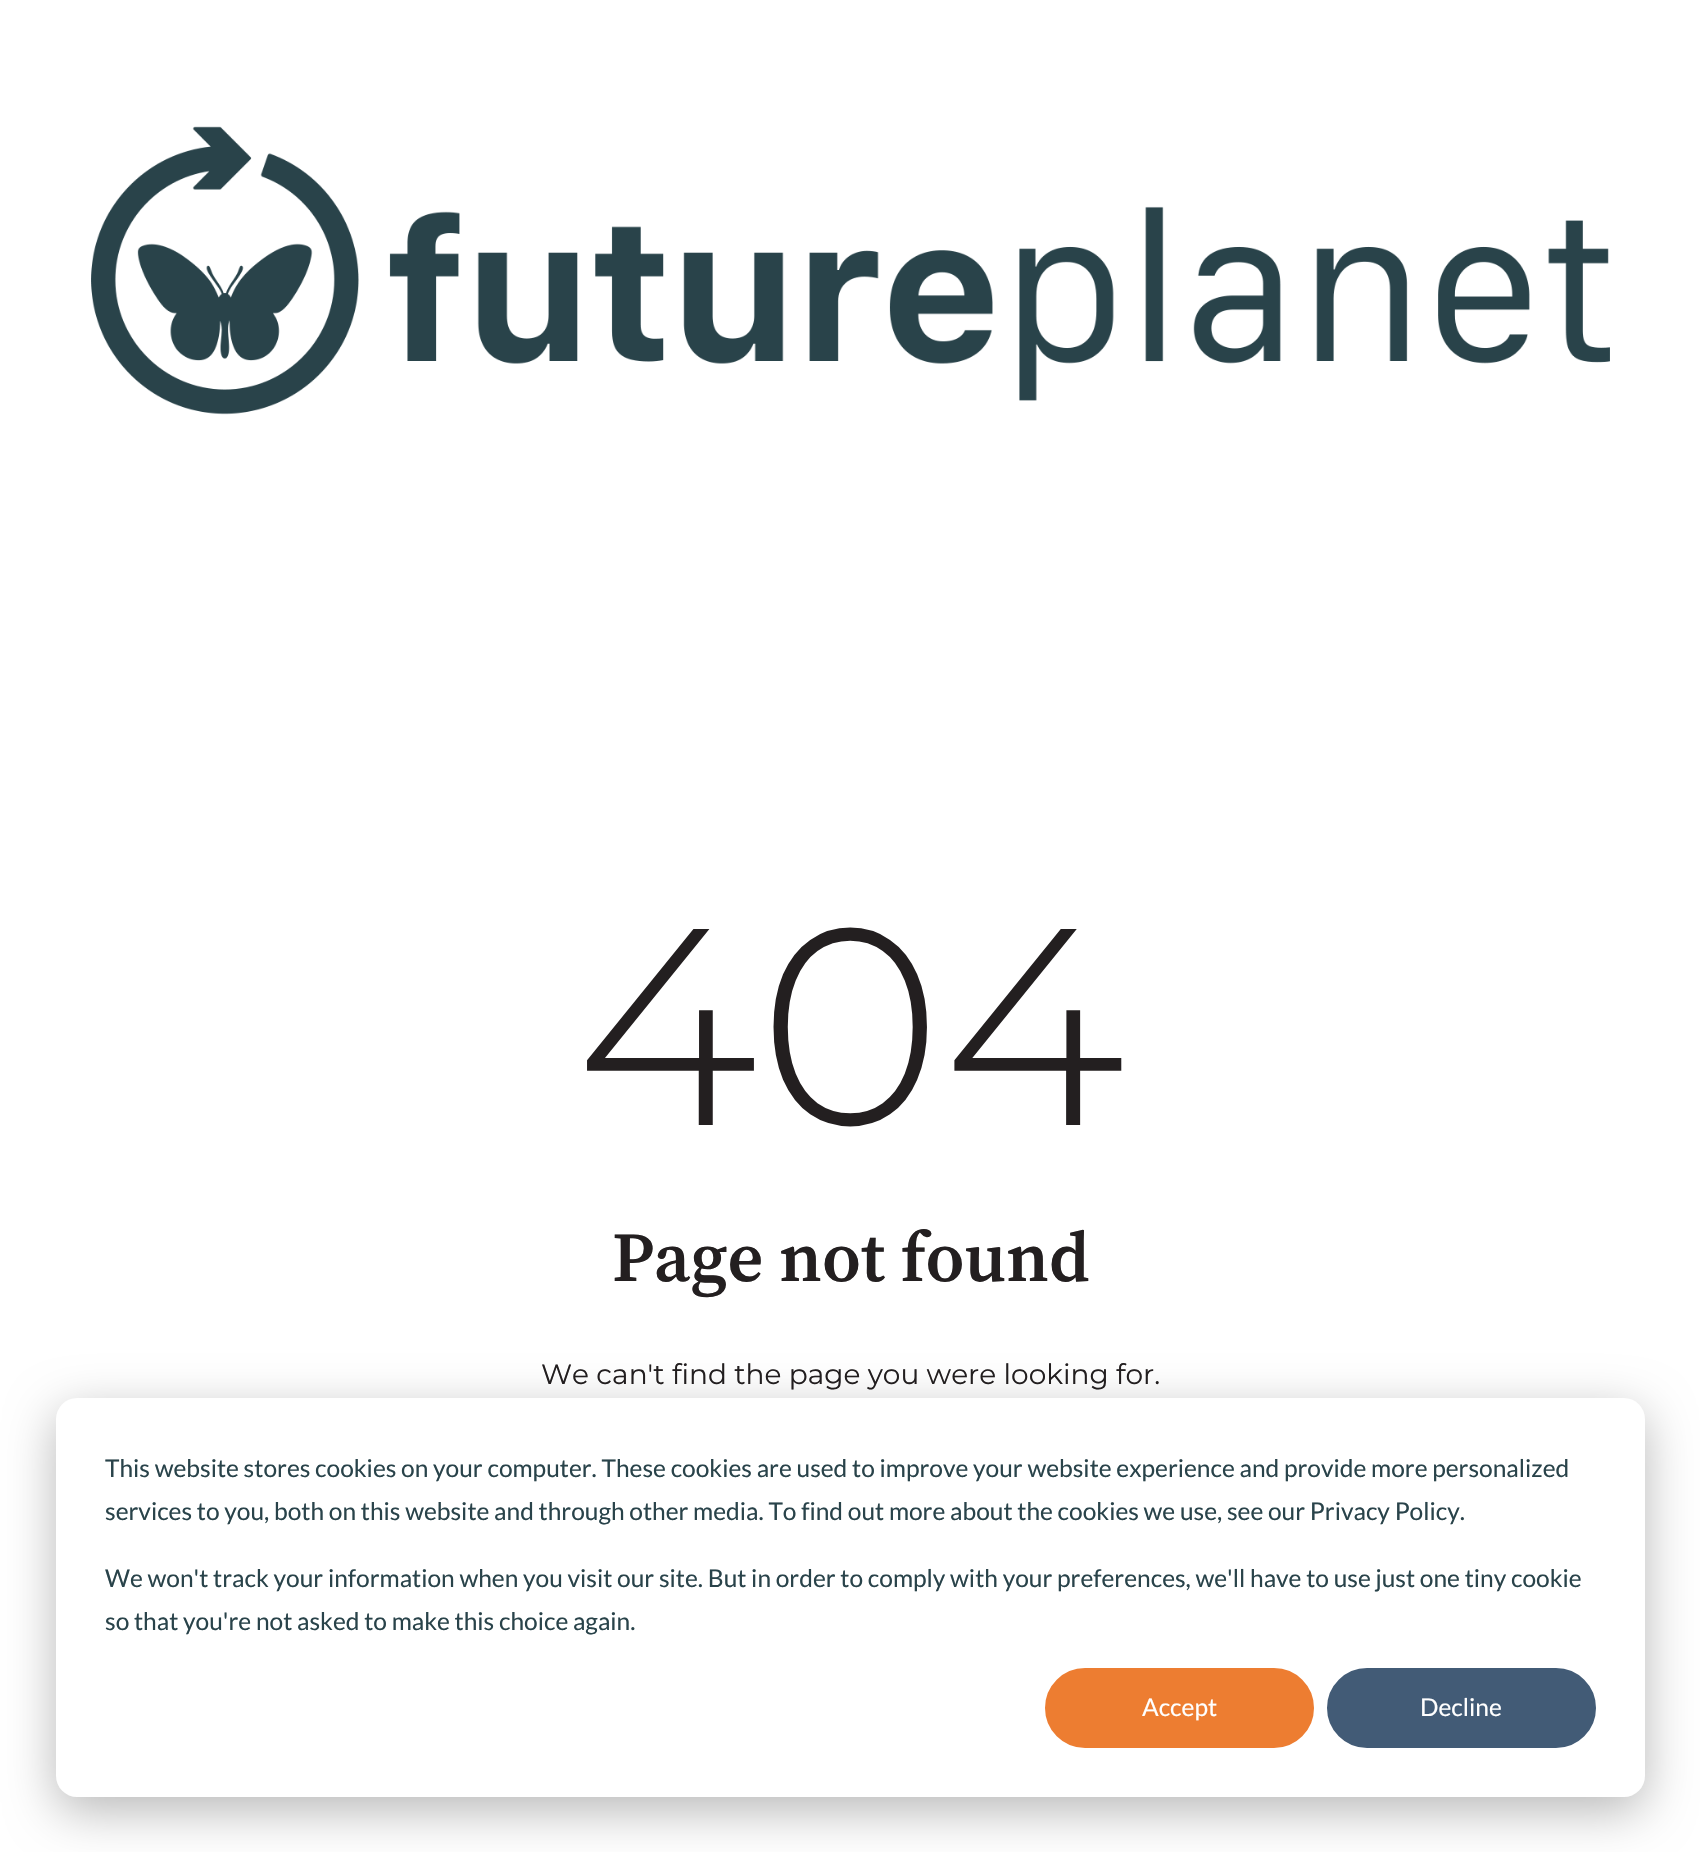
void draw(SkCanvas* c) {
SkPaint p;
p.setAntiAlias(true);
auto F=[&](const char* family, int weight, float size, bool italic = false){SkFontStyle style(weight, SkFontStyle::kNormal_Width,italic ? SkFontStyle::kItalic_Slant : SkFontStyle::kUpright_Slant);SkFont result(fontMgr->matchFamilyStyle(family, style), size);result.setSubpixel(true);return result;};
auto T=[&](const char* s, float x, float y, const SkFont& font){c->drawString(s, x, y, font, p);};
auto Q=[&](float x, float y, float w, float h, float radius){c->drawRoundRect(SkRect::MakeXYWH(x, y, w, h), radius, radius, p);};
auto I=[&](const char* path, float x, float y, float w, float h){auto image = SkImages::DeferredFromEncodedData(SkData::MakeFromFileName(path));c->drawImageRect(image, SkRect::MakeXYWH(x, y, w, h), SkSamplingOptions());};
c->clear(0xffffffff);
I("1.png",91,126,1519,289);
auto f1 = F("Montserrat",300,280);
p.setColor(0xff231f20);
T("404",575,1125,f1);
auto f2 = F("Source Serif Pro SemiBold",600,70);
T("Page not found",612,1281,f2);
auto f3 = F("Montserrat",400,28);
T("We can't find the page you were looking for.",541,1384,f3);
p.setColor(0x47000000);
p.setMaskFilter(SkMaskFilter::MakeBlur(kNormal_SkBlurStyle, 24.5));
c->drawRoundRect(SkRect::MakeXYWH(56,1412,1589,399),21,21,p);
p.setMaskFilter(nullptr);
p.setColor(0xffffffff);
Q(56,1398,1589,399,21);
auto f4 = F("Lato",400,24.5);
p.setColor(0xff29434a);
T("This website stores cookies on your computer. These cookies are used to improve your website experience and provide more personalized",105,1477,f4);
T("services to you, both on this website and through other media. To find out more about the cookies we use, see our Privacy Policy.",105,1520,f4);
T("We won't track your information when you visit our site. But in order to comply with your preferences, we'll have to use just one tiny cookie",105,1587,f4);
T("so that you're not asked to make this choice again.",105,1630,f4);
p.setColor(0xffed7d31);
c->drawRoundRect(SkRect::MakeXYWH(1046,1669,267,78),39,39,p);
p.setStroke(true);
p.setStrokeWidth(2);
c->drawRoundRect(SkRect::MakeXYWH(1046,1669,267,78),39,39,p);
p.setStroke(false);
p.setColor(0xffffffff);
T("Accept",1142,1716,f4);
p.setColor(0xff425b76);
c->drawRoundRect(SkRect::MakeXYWH(1328,1669,267,78),39,39,p);
p.setStroke(true);
c->drawRoundRect(SkRect::MakeXYWH(1328,1669,267,78),39,39,p);
p.setStroke(false);
p.setColor(0xffffffff);
T("Decline",1420,1716,f4);
}
